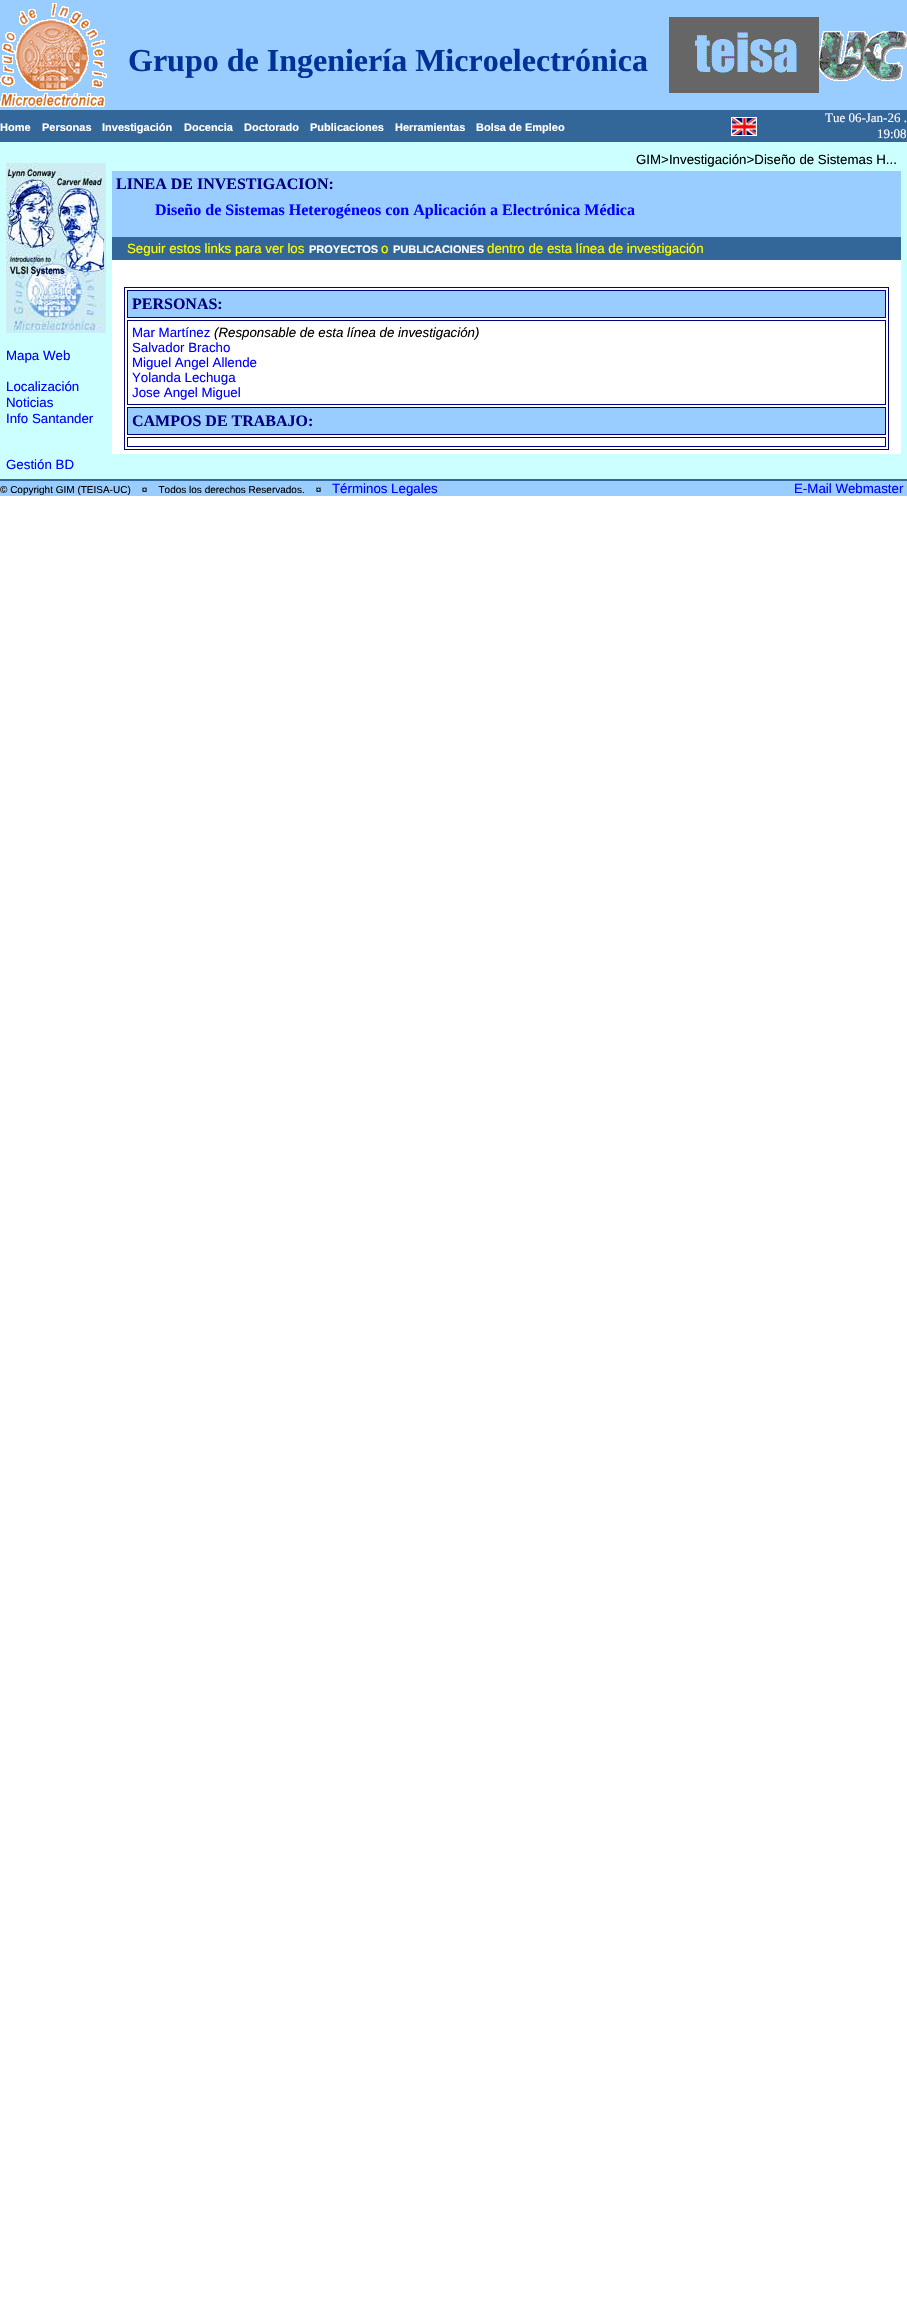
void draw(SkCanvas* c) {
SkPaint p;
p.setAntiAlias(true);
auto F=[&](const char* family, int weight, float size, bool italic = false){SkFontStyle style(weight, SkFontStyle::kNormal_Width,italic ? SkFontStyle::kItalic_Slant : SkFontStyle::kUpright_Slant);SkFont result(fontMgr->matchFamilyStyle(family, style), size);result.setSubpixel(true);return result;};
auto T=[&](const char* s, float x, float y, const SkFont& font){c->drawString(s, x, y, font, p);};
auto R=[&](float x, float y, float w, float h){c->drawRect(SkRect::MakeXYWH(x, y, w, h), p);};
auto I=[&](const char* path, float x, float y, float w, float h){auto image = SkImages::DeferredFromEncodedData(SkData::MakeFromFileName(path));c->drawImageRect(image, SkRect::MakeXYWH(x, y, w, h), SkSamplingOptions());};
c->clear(0xffffffff);
p.setColor(0xff99ccff);
R(0,0,907,110);
I("1.png",0,3,107,104);
auto f1 = F("Liberation Serif",700,32);
p.setColor(0xff003399);
T("Grupo de Ingeniería Microelectrónica",128,71,f1);
I("2.png",669,17,150,76);
I("3.png",819,31,88,50);
p.setColor(0xff336699);
R(0,110,907,32);
auto f2 = F("Liberation Sans",700,11);
p.setColor(0xffffffff);
T("Home",0,131,f2);
T("Personas",42,131,f2);
T("Investigación",102,131,f2);
T("Docencia",184,131,f2);
T("Doctorado",244,131,f2);
T("Publicaciones",310,131,f2);
T("Herramientas",395,131,f2);
T("Bolsa de Empleo",476,131,f2);
I("4.png",731,117,26,19);
auto f3 = F("Liberation Serif",400,13);
T("Tue 06-Jan-26 .",825,122,f3);
T("19:08",877,138,f3);
p.setColor(0xffccffff);
R(0,142,907,337);
I("5.png",6,163,100,170);
auto f4 = F("Liberation Sans",400,13.3);
p.setColor(0xff0000ff);
T("Mapa Web",6,360,f4);
T("Localización",6,391,f4);
T("Noticias",6,407,f4);
T("Info Santander",6,423,f4);
T("Gestión BD",6,469,f4);
p.setColor(0xffffffff);
R(112,260,789,194);
p.setColor(0xff000000);
T("GIM>Investigación>Diseño de Sistemas H...",636,164,f4);
p.setColor(0xff99ccff);
R(112,171,789,66);
auto f5 = F("Liberation Serif",700,16);
p.setColor(0xff000080);
T("LINEA DE INVESTIGACION:",116,189,f5);
p.setColor(0xff0000ff);
T("Diseño de Sistemas Heterogéneos con Aplicación a Electrónica Médica",155,215,f5);
p.setColor(0xff336699);
R(112,237,789,23);
p.setColor(0xffffff00);
T("Seguir estos links para ver los",127,253,f4);
p.setColor(0xffffffff);
T("PROYECTOS",309,253,f2);
p.setColor(0xffffff00);
T("o",381,253,f4);
p.setColor(0xffffffff);
T("PUBLICACIONES",393,253,f2);
p.setColor(0xffffff00);
T("dentro de esta línea de investigación",487,253,f4);
p.setStroke(true);
p.setStrokeWidth(1);
p.setColor(0xff000080);
c->drawRect(SkRect::MakeXYWH(124.5,287.5,764,162),p);
p.setStroke(false);
p.setColor(0xff99ccff);
c->drawRect(SkRect::MakeXYWH(127.5,290.5,758,27),p);
p.setStroke(true);
p.setColor(0xff000080);
c->drawRect(SkRect::MakeXYWH(127.5,290.5,758,27),p);
p.setStroke(false);
T("PERSONAS:",132,309,f5);
p.setStroke(true);
c->drawRect(SkRect::MakeXYWH(127.5,320.5,758,84),p);
p.setStroke(false);
p.setColor(0xff0000ff);
T("Mar Martínez",132,337,f4);
auto f6 = F("Liberation Sans",400,13.3,true);
p.setColor(0xff000000);
T("(Responsable de esta línea de investigación)",214,337,f6);
p.setColor(0xff0000ff);
T("Salvador Bracho",132,352,f4);
T("Miguel Angel Allende",132,367,f4);
T("Yolanda Lechuga",132,382,f4);
T("Jose Angel Miguel",132,397,f4);
p.setColor(0xff99ccff);
c->drawRect(SkRect::MakeXYWH(127.5,407.5,758,27),p);
p.setStroke(true);
p.setColor(0xff000080);
c->drawRect(SkRect::MakeXYWH(127.5,407.5,758,27),p);
p.setStroke(false);
T("CAMPOS DE TRABAJO:",132,426,f5);
p.setStroke(true);
c->drawRect(SkRect::MakeXYWH(127.5,437.5,758,9),p);
p.setStroke(false);
p.setColor(0xff336699);
R(0,479,907,2);
p.setColor(0xff99ccff);
R(0,481,907,15);
auto f7 = F("Liberation Sans",400,10);
p.setColor(0xff000000);
T("© Copyright GIM (TEISA-UC)    ¤    Todos los derechos Reservados.    ¤",0,493,f7);
p.setColor(0xff0000ff);
T("Términos Legales",332,493,f4);
T("E-Mail Webmaster",794,493,f4);
}
